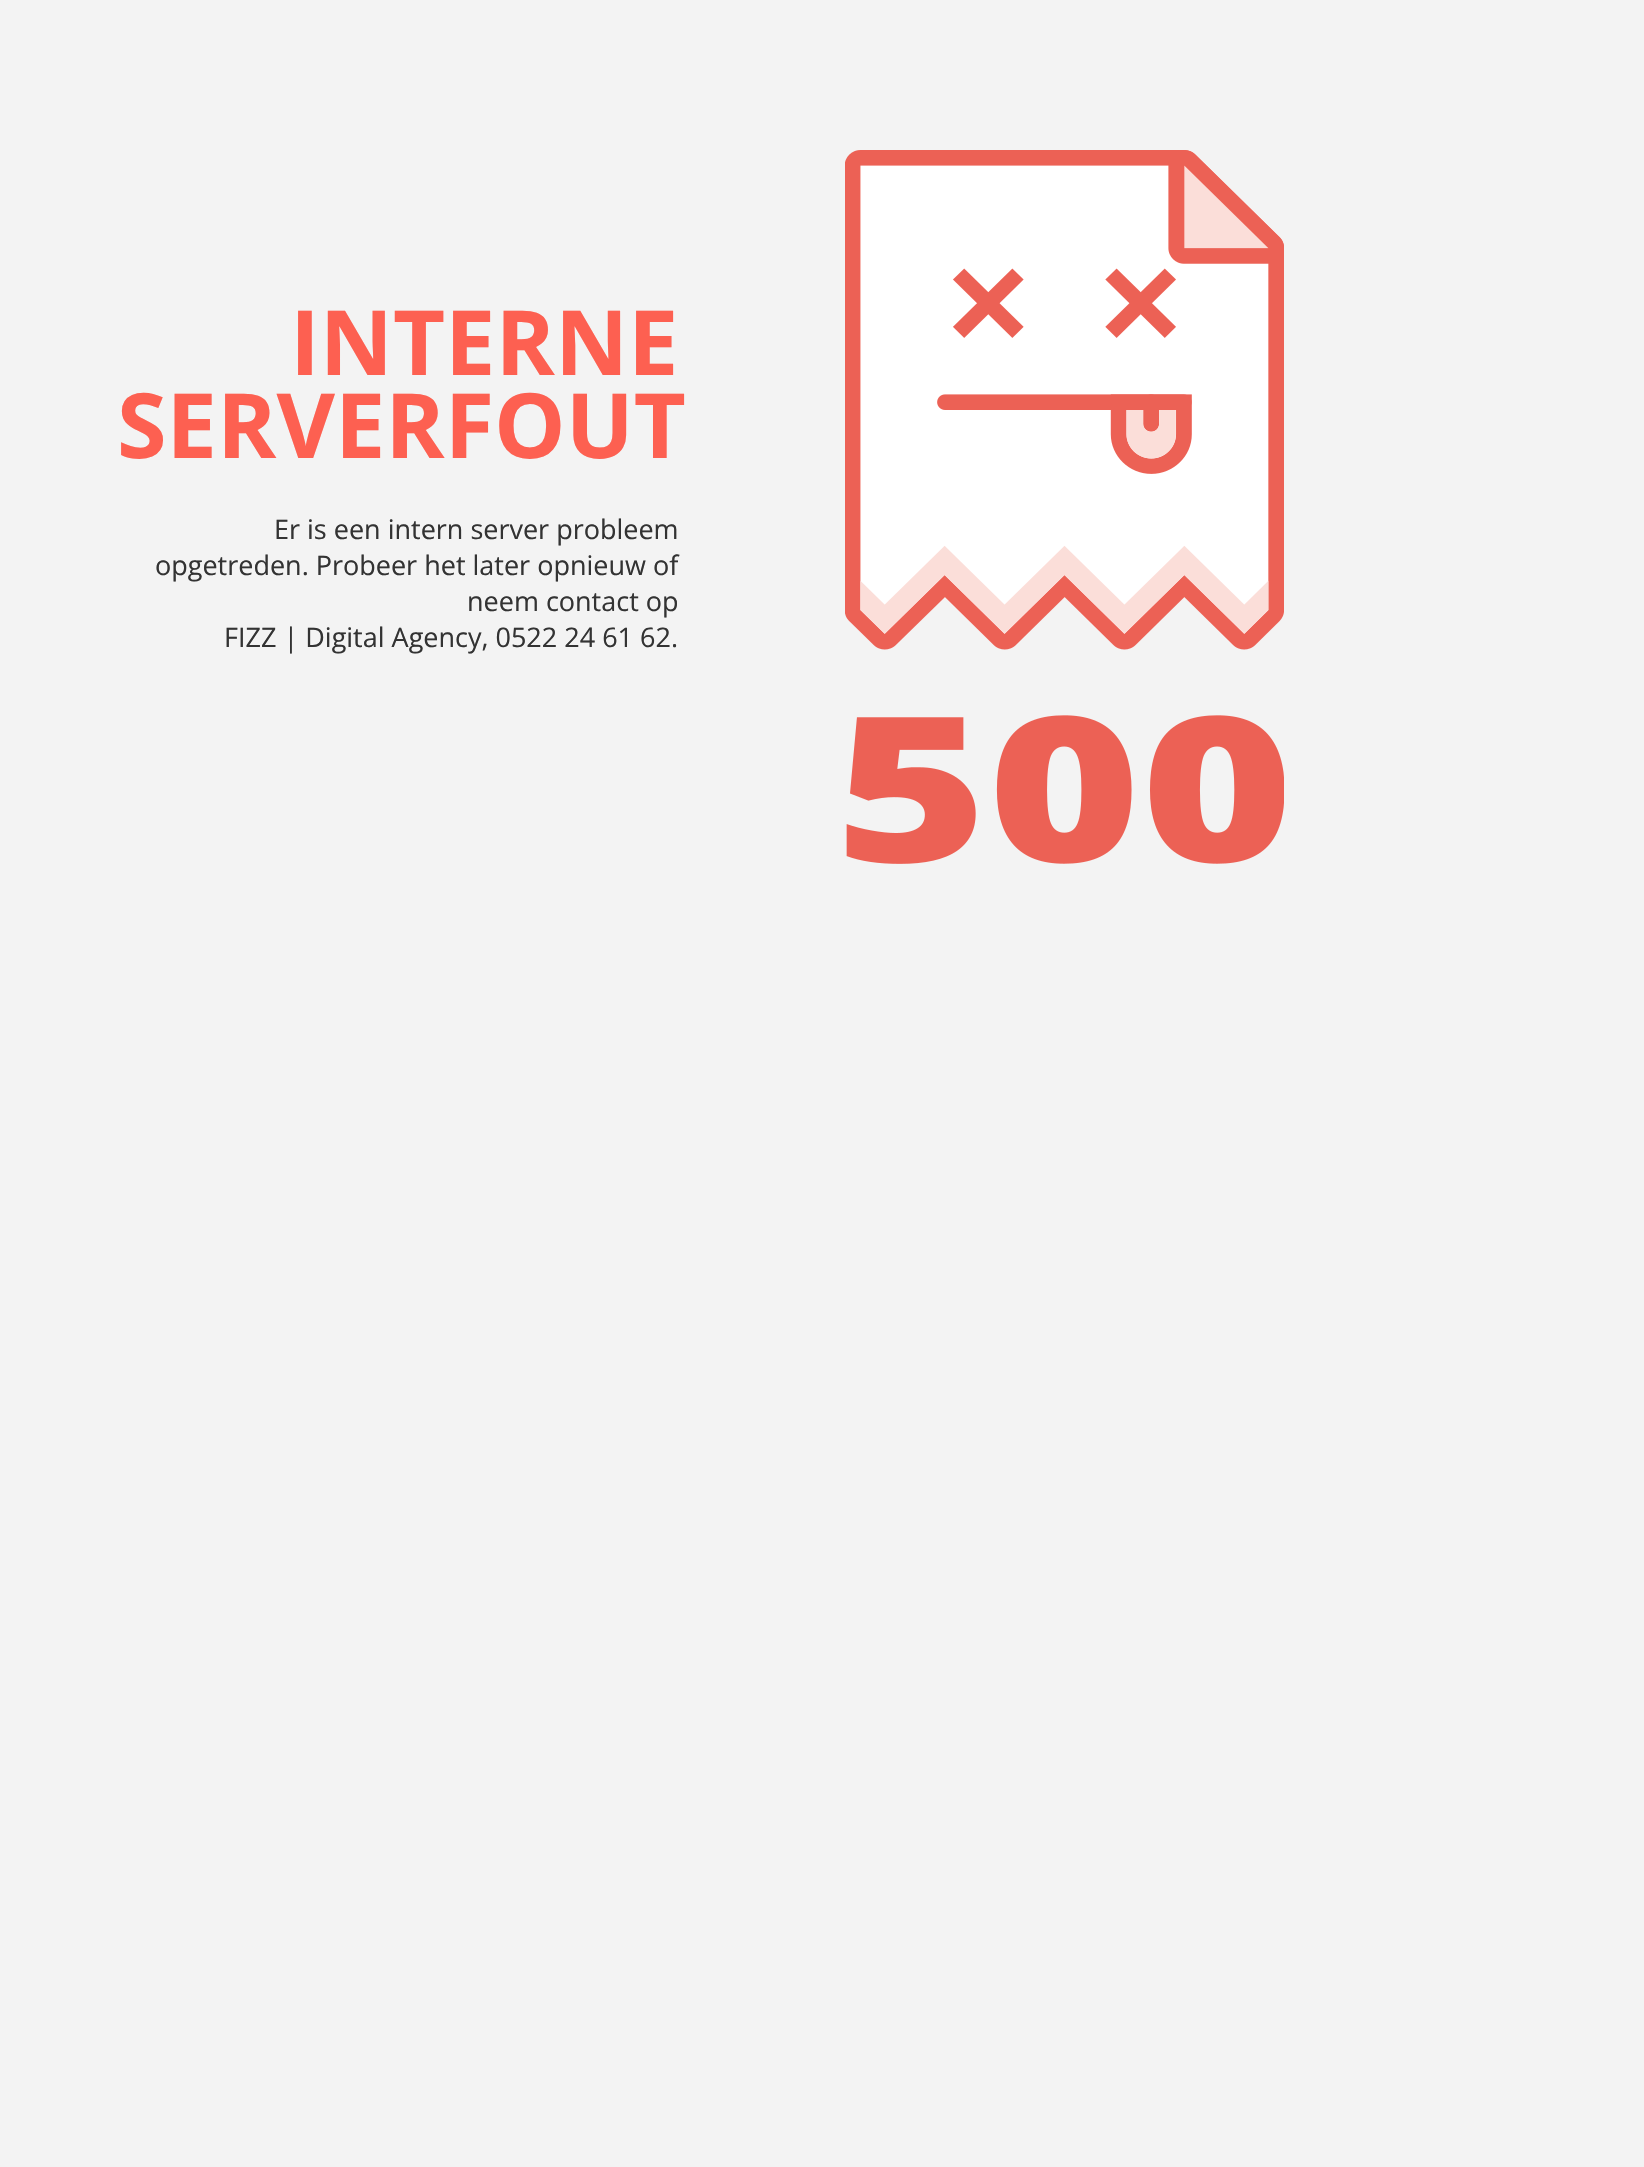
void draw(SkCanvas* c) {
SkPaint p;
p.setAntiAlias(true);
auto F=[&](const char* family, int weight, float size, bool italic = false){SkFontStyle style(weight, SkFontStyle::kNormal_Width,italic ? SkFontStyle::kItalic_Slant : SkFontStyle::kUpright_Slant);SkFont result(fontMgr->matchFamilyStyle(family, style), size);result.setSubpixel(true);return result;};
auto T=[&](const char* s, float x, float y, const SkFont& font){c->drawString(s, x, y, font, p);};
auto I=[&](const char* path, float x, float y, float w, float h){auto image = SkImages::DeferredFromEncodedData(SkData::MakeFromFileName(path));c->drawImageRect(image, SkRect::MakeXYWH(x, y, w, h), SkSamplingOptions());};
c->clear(0xfff3f3f3);
auto f1 = F("Open Sans",700,90);
p.setColor(0xfffd6051);
T("INTERNE",290,375,f1);
T("SERVERFOUT",117,458,f1);
auto f2 = F("Open Sans",400,27);
p.setColor(0xff333333);
T("Er is een intern server probleem",274,539,f2);
T("opgetreden. Probeer het later opnieuw of",155,575,f2);
T("neem contact op",467,611,f2);
T("FIZZ | Digital Agency, 0522 24 61 62.",224,647,f2);
I("1.png",845,150,439,714);
}
